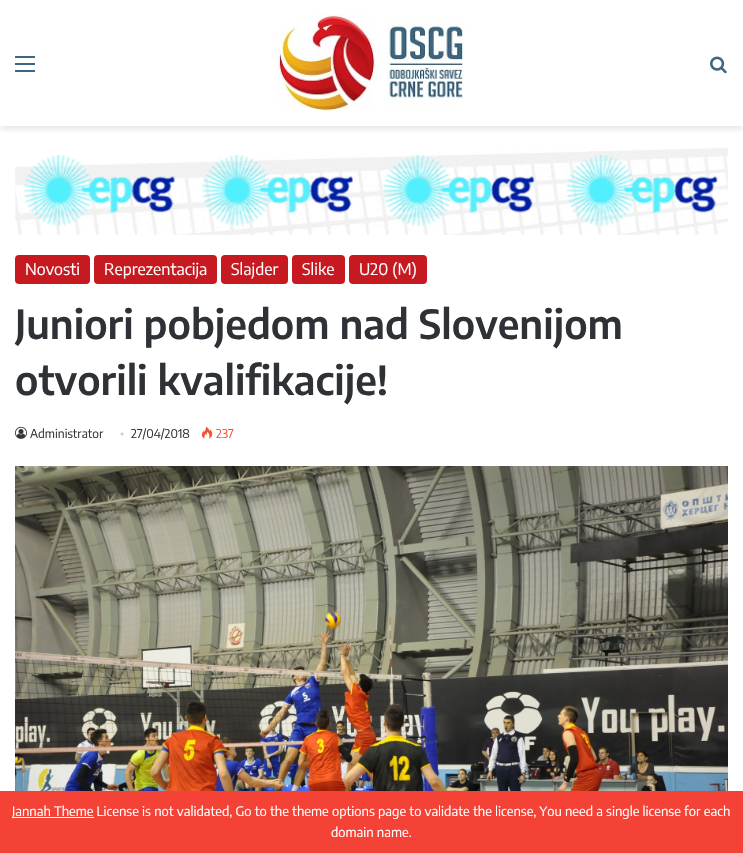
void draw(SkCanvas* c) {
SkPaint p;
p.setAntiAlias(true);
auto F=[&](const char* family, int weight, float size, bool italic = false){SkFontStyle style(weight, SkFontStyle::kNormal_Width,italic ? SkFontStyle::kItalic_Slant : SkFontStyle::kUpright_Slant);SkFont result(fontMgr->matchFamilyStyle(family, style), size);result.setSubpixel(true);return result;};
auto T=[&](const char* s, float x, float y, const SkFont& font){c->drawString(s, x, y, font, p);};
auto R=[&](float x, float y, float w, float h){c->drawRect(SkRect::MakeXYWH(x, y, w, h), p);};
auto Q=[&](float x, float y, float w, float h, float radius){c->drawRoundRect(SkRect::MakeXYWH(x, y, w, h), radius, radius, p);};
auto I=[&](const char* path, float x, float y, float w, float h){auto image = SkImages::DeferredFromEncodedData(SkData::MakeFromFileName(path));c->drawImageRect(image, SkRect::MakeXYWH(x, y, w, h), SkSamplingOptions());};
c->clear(0xffffffff);
c->save();
c->clipRect(SkRect::MakeXYWH(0,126,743,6));
p.setColor(0x1a000000);
p.setMaskFilter(SkMaskFilter::MakeBlur(kNormal_SkBlurStyle, 3.5));
c->drawRect(SkRect::MakeXYWH(0,3,743,126),p);
p.setMaskFilter(nullptr);
c->restore();
p.setColor(0xff3e6680);
R(15,63,20,2);
R(15,56,20,2);
R(15,70,20,2);
I("1.png",277,14,188,98);
I("2.png",710,56,17,18);
I("3.png",15,146,713,89);
p.setColor(0xffc61a20);
Q(15,255,75,29,4);
auto f1 = F("Encode Sans Condensed",400,16);
p.setColor(0xffffffff);
T("Novosti",25,275,f1);
p.setColor(0xffc61a20);
Q(94,255,123,29,4);
p.setColor(0xffffffff);
T("Reprezentacija",104,275,f1);
p.setColor(0xffc61a20);
Q(221,255,67,29,4);
p.setColor(0xffffffff);
T("Slajder",231,275,f1);
p.setColor(0xffc61a20);
Q(292,255,53,29,4);
p.setColor(0xffffffff);
T("Slike",302,275,f1);
p.setColor(0xffc61a20);
Q(349,255,78,29,4);
p.setColor(0xffffffff);
T("U20 (M)",359,275,f1);
auto f2 = F("Encode Sans Condensed",600,40);
p.setColor(0xff2e3136);
T("Juniori pobjedom nad Slovenijom",15,339,f2);
T("otvorili kvalifikacije!",15,395,f2);
I("4.png",15,426,12,13);
auto f3 = F("Encode Sans Condensed",400,12);
p.setColor(0xff353535);
T("Administrator",30,438,f3);
auto f4 = F("Liberation Serif",400,12);
p.setColor(0xffcdcdcd);
T("•",120,438,f4);
p.setColor(0xff353535);
T("27/04/2018",131,438,f3);
I("5.png",201,426,12,13);
p.setColor(0xfff3522c);
T("237",216,438,f3);
I("6.png",15,466,713,325);
p.setColor(0xfff44336);
R(0,791,743,62);
p.setColor(0xffffffff);
R(12,817,82,1);
auto f5 = F("Encode Sans Condensed",400,13);
T("Jannah Theme License is not validated, Go to the theme options page to validate the license, You need a single license for each",12,816,f5);
T("domain name.",331,837,f5);
}
